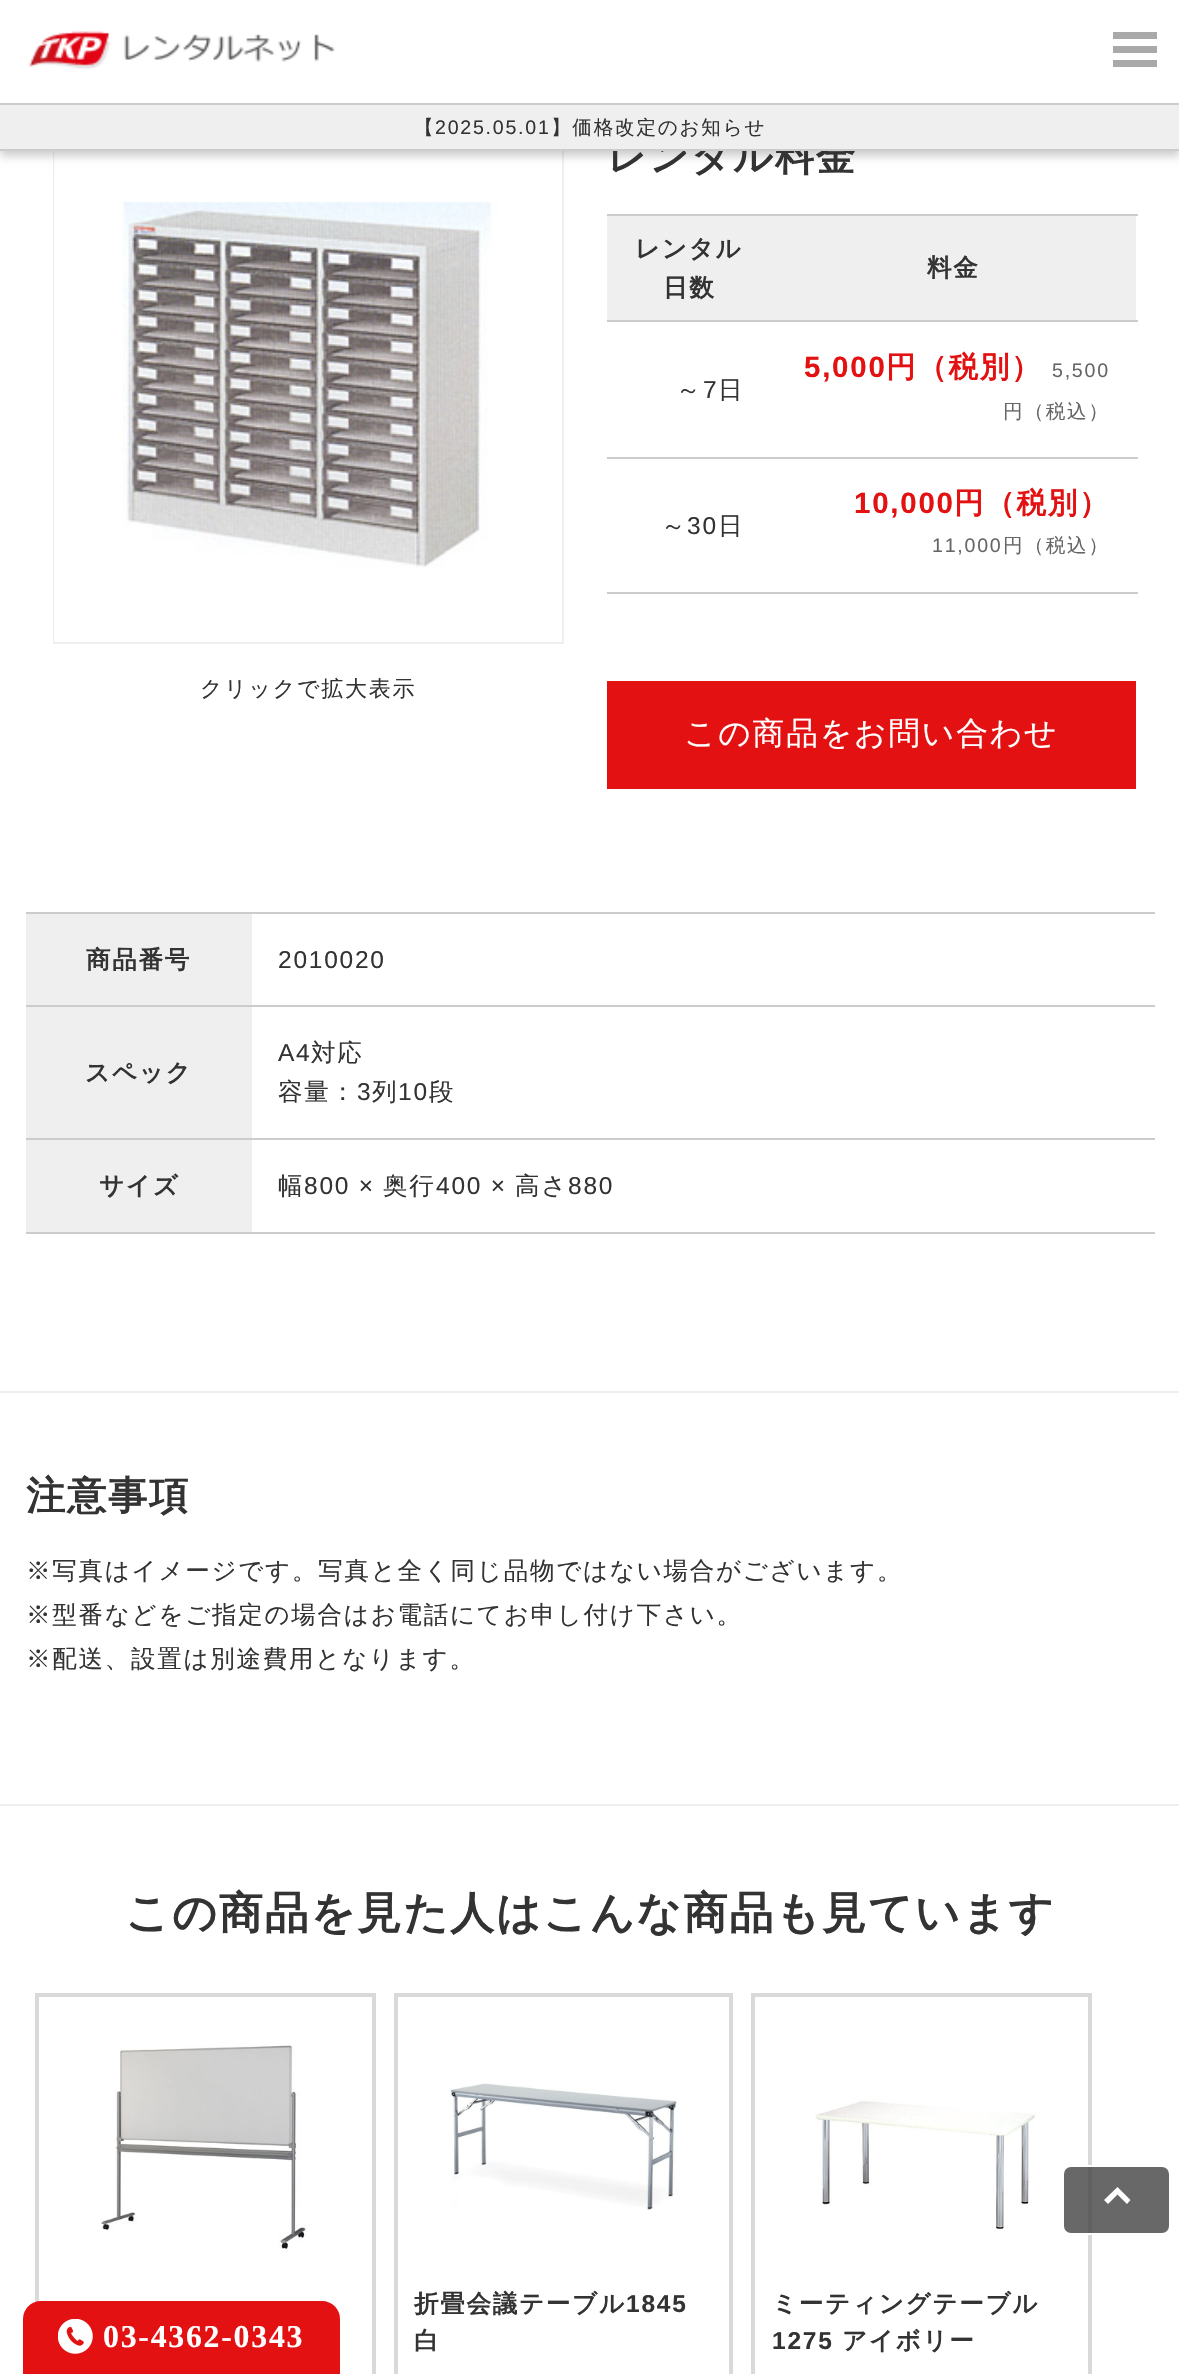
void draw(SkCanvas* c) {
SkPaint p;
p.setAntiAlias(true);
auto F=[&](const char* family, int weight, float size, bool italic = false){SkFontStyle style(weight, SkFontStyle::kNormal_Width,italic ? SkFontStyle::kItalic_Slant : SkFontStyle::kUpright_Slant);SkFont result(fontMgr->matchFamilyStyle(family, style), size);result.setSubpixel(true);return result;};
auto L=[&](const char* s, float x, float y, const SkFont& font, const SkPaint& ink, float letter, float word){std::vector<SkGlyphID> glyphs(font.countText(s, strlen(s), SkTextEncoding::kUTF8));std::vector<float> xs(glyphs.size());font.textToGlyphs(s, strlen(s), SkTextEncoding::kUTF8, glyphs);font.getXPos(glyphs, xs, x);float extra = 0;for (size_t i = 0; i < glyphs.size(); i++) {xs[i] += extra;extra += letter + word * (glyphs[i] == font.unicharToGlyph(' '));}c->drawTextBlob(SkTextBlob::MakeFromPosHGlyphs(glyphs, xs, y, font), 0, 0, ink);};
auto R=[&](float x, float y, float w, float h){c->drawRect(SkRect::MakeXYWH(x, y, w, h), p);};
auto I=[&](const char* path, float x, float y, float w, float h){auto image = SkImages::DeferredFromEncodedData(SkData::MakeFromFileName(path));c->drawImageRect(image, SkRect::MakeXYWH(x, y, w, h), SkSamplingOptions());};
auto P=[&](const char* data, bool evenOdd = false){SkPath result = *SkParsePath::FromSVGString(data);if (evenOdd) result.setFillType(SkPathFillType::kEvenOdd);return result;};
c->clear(0xffffffff);
p.setStroke(true);
p.setStrokeWidth(2);
p.setColor(0xffefefef);
c->drawRect(SkRect::MakeXYWH(54,134,509,509),p);
I("2.png",54,151,508,491);
p.setStroke(false);
p.setColor(0x33000000);
p.setMaskFilter(SkMaskFilter::MakeBlur(kNormal_SkBlurStyle, 4.5));
c->drawRect(SkRect::MakeXYWH(0,5,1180,151),p);
p.setMaskFilter(nullptr);
p.setColor(0xffffffff);
R(0,0,1179,103);
I("1.png",29,31,306,39);
p.setColor(0xffa9a9a9);
R(1113,32,44,7);
R(1113,46,44,7);
R(1113,60,44,7);
auto f1 = F("WenQuanYi Zen Hei",700,39.25);
p.setColor(0xff333333);
L("レンタル料金",607,170,f1,p,1.75,0);
p.setColor(0xffefefef);
R(0,105,1179,44);
p.setColor(0xffcccccc);
R(0,103,1179,2);
R(0,149,1179,2);
auto f2 = F("WenQuanYi Zen Hei",500,19.6);
p.setColor(0xff333333);
L("【",414,134,f2,p,1.75,0);
auto f3 = F("Liberation Sans",400,19.6);
L("2025.05.01",435,134,f3,p,1.75,0);
L("】価格改定のお知らせ",551,134,f2,p,1.75,0);
p.setColor(0xffefefef);
R(0,1391,1179,2);
auto f4 = F("WenQuanYi Zen Hei",500,22);
p.setColor(0xff333333);
L("クリックで拡大表示",200,696,f4,p,1.75,0);
p.setColor(0xffefefef);
R(607,216,529,104);
auto f5 = F("WenQuanYi Zen Hei",700,24.5);
p.setColor(0xff333333);
L("レンタル",635,257,f5,p,1.75,0);
L("日数",663,296,f5,p,1.75,0);
p.setColor(0xffcccccc);
R(607,214,531,2);
p.setColor(0xff333333);
L("料金",927,276,f5,p,1.75,0);
auto f6 = F("WenQuanYi Zen Hei",500,24.5);
L("～",676,398,f6,p,1.75,0);
auto f7 = F("Liberation Sans",400,24.5);
L("7",703,398,f7,p,1.75,0);
L("日",718,398,f6,p,1.75,0);
p.setColor(0xffcccccc);
R(607,320,531,2);
auto f8 = F("Liberation Sans",700,29.5);
p.setColor(0xffe31111);
L("5,000",804,377,f8,p,1.75,0);
auto f9 = F("WenQuanYi Zen Hei",700,29.5);
L("円（税別）",886,377,f9,p,1.75,0);
p.setColor(0xff666666);
L("5,500",1052,377,f3,p,1.75,0);
L("円（税込）",1003,418,f2,p,1.75,0);
p.setColor(0xff333333);
L("～",661,534,f6,p,1.75,0);
L("30",687,534,f7,p,1.75,0);
L("日",718,534,f6,p,1.75,0);
p.setColor(0xffcccccc);
R(607,457,531,2);
R(607,592,531,2);
p.setColor(0xffe31111);
L("10,000",854,513,f8,p,1.75,0);
L("円（税別）",954,513,f9,p,1.75,0);
p.setColor(0xff666666);
L("11,000",932,552,f3,p,1.75,0);
L("円（税込）",1003,552,f2,p,1.75,0);
p.setColor(0xffe31111);
R(607,681,529,108);
auto f10 = F("WenQuanYi Zen Hei",500,31.8);
p.setColor(0xffffffff);
L("この商品をお問い合わせ",684,744,f10,p,1.75,0);
p.setColor(0xffefefef);
R(26,914,226,91);
p.setColor(0xff333333);
L("商品番号",86,968,f5,p,1.75,0);
p.setColor(0xffcccccc);
R(26,912,1129,2);
p.setColor(0xff333333);
L("2010020",278,968,f7,p,1.75,0);
p.setColor(0xffefefef);
R(26,1007,226,131);
p.setColor(0xff333333);
L("スペック",85,1081,f5,p,1.75,0);
p.setColor(0xffcccccc);
R(26,1005,1129,2);
p.setColor(0xff333333);
L("A4",278,1061,f7,p,1.75,0);
L("対応",311,1061,f6,p,1.75,0);
L("容量：",278,1100,f6,p,1.75,0);
L("3",357,1100,f7,p,1.75,0);
L("列",372,1100,f6,p,1.75,0);
L("10",398,1100,f7,p,1.75,0);
L("段",429,1100,f6,p,1.75,0);
p.setColor(0xffefefef);
R(26,1140,226,92);
p.setColor(0xff333333);
L("サイズ",99,1194,f5,p,1.75,0);
p.setColor(0xffcccccc);
R(26,1138,1129,2);
R(26,1232,1129,2);
p.setColor(0xff333333);
L("幅",278,1194,f6,p,1.75,0);
L("800 ×",304,1194,f7,p,1.75,0);
L("奥行",383,1194,f6,p,1.75,0);
L("400 ×",436,1194,f7,p,1.75,0);
L("高さ",515,1194,f6,p,1.75,0);
L("880",568,1194,f7,p,1.75,0);
p.setColor(0xffefefef);
R(0,1804,1179,2);
p.setColor(0xff333333);
L("注意事項",26,1509,f1,p,1.75,0);
L("※写真はイメージです。写真と全く同じ品物ではない場合がございます。",26,1579,f6,p,1.75,0);
L("※型番などをご指定の場合はお電話にてお申し付け下さい。",26,1623,f6,p,1.75,0);
L("※配送、設置は別途費用となります。",26,1667,f6,p,1.75,0);
auto f11 = F("WenQuanYi Zen Hei",700,44.1);
L("この商品を見た人はこんな商品も見ています",125,1928,f11,p,1.75,0);
p.setStroke(true);
p.setStrokeWidth(4);
p.setColor(0xffd9d9d9);
c->drawRect(SkRect::MakeXYWH(37,1995,337,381),p);
I("3.png",101,2045,206,207);
c->drawRect(SkRect::MakeXYWH(396,1995,335,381),p);
I("4.png",449,2083,228,127);
p.setStroke(false);
p.setColor(0xff333333);
L("折畳会議テーブル",414,2312,f5,p,1.75,0);
auto f12 = F("Liberation Sans",700,24.5);
L("1845",626,2312,f12,p,1.75,0);
L("白",414,2349,f5,p,1.75,0);
p.setStroke(true);
p.setColor(0xffd9d9d9);
c->drawRect(SkRect::MakeXYWH(753,1995,337,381),p);
I("5.png",815,2099,221,132);
p.setStroke(false);
p.setColor(0xff333333);
L("ミーティングテーブル",772,2312,f5,p,1.75,0);
L("1275",772,2349,f12,p,1.75,0);
L("アイボリー",842,2349,f5,p,1.75,0);
p.setColor(0xcc424242);
c->drawRoundRect(SkRect::MakeXYWH(1063,2166,107,68),8,8,p);
p.setStroke(true);
p.setStrokeWidth(2);
p.setColor(0xffffffff);
c->drawRoundRect(SkRect::MakeXYWH(1063,2166,107,68),8,8,p);
p.setStroke(false);
c->drawPath(P("M1117.5 2187l-13.5 13l4 4l9.5-9.5l9.5 9.5l3.5-4z"),p);
p.setColor(0xffe31111);
c->drawPath(P("M41 2301h281c10 0 18 8 18 18v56h-317v-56c0-10 8-18 18-18z"),p);
I("6.png",58,2319,35,35);
auto f13 = F("Liberation Serif",700,31.8);
p.setColor(0xffffffff);
L("03-4362-0343",103,2347,f13,p,1.75,0);
}
